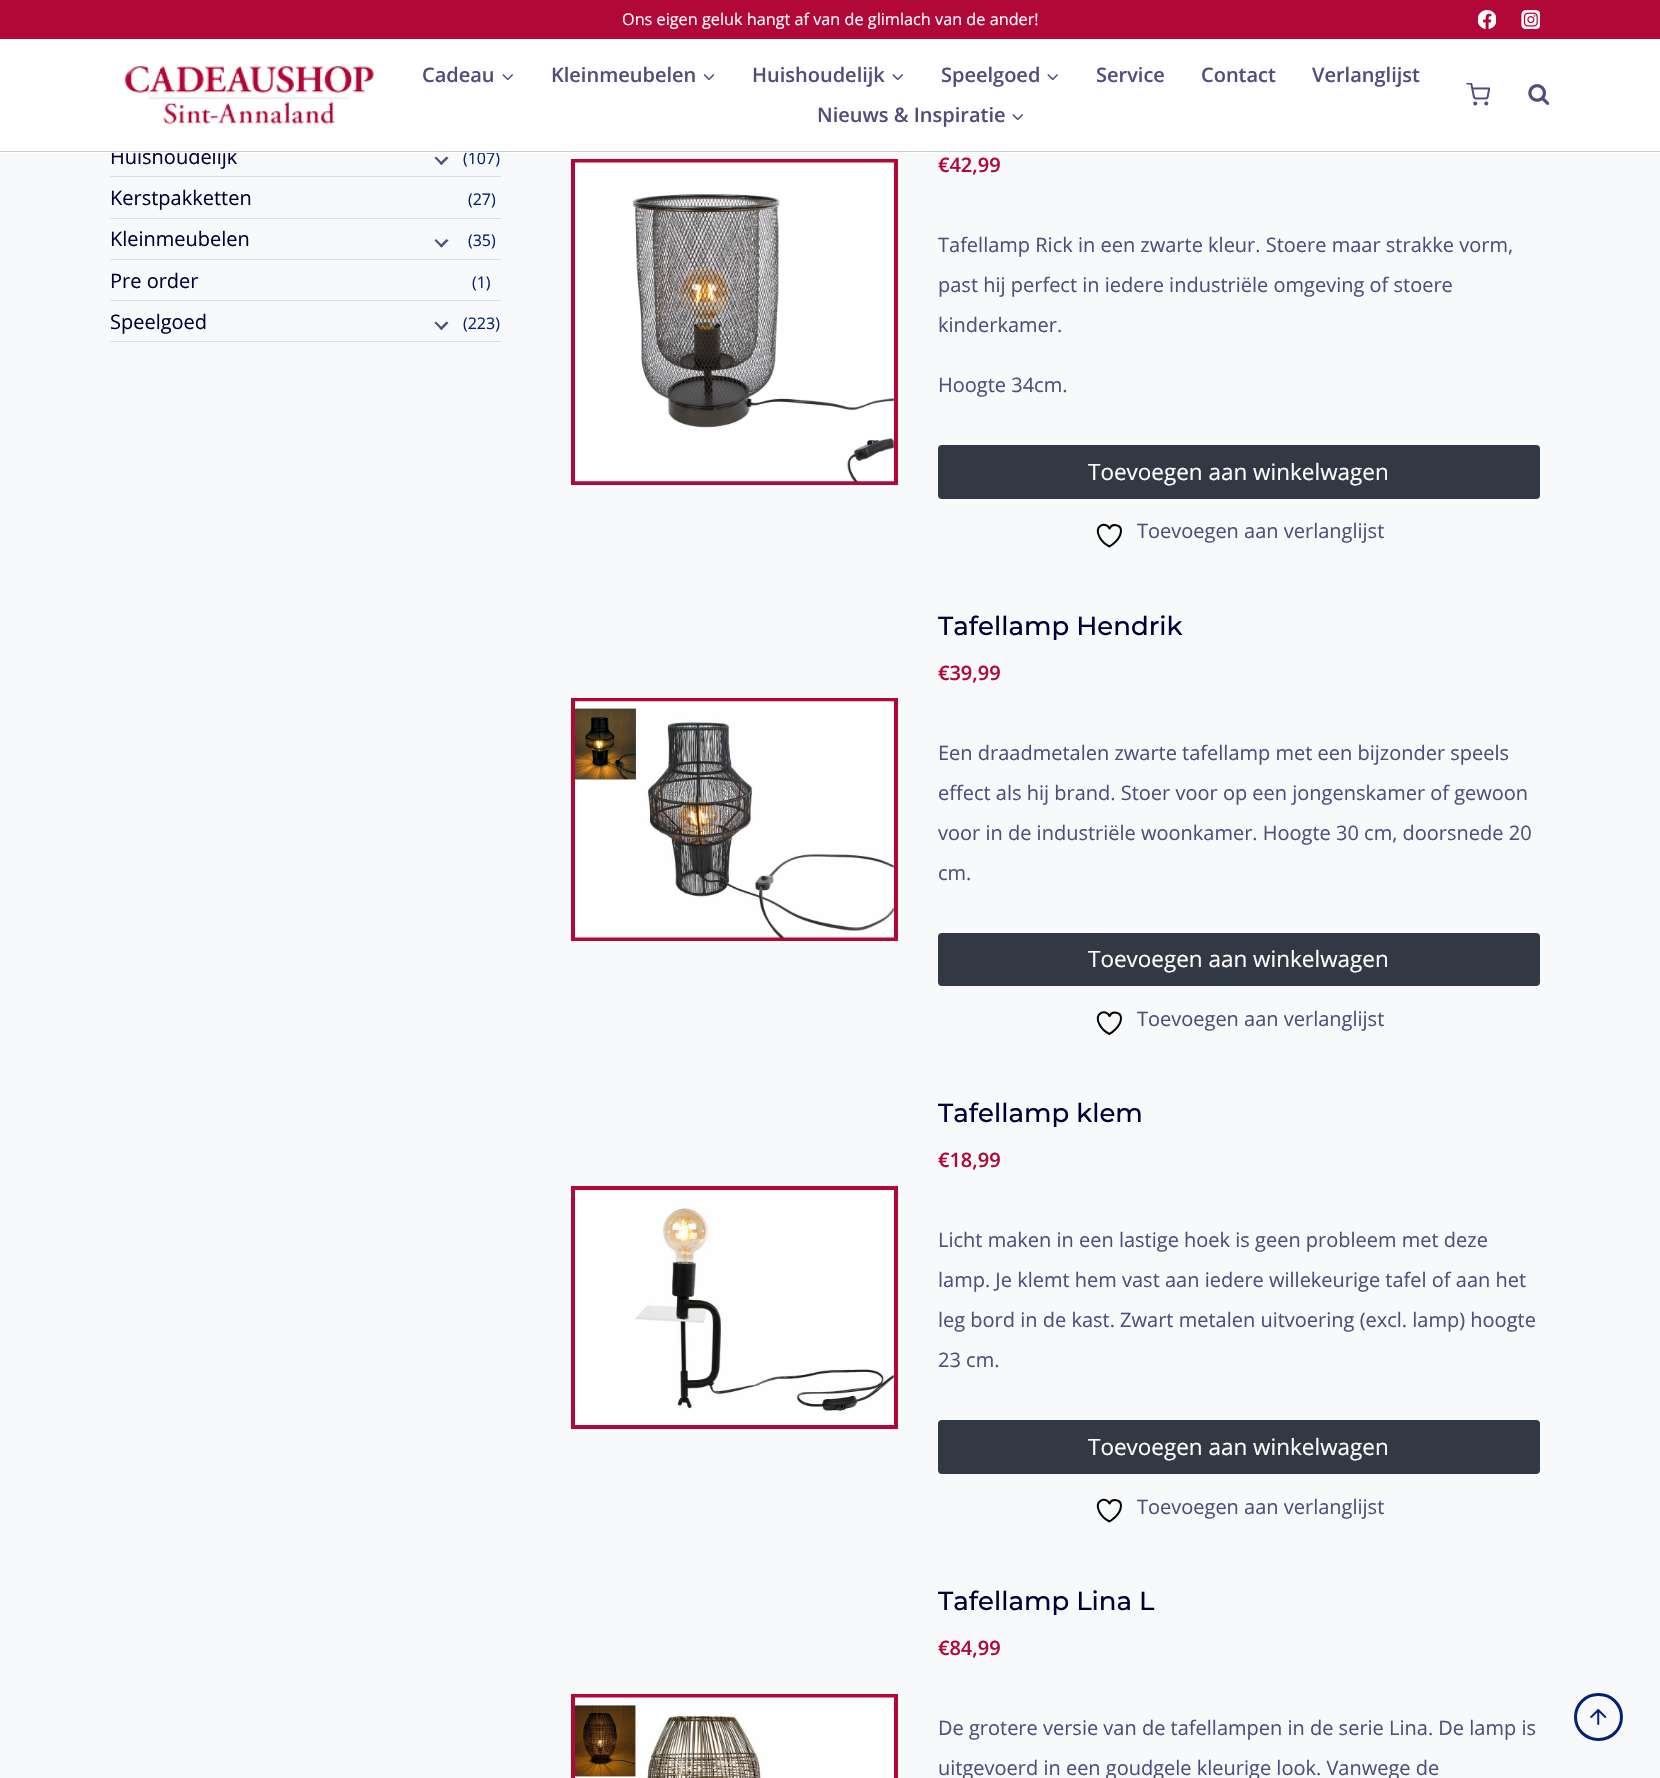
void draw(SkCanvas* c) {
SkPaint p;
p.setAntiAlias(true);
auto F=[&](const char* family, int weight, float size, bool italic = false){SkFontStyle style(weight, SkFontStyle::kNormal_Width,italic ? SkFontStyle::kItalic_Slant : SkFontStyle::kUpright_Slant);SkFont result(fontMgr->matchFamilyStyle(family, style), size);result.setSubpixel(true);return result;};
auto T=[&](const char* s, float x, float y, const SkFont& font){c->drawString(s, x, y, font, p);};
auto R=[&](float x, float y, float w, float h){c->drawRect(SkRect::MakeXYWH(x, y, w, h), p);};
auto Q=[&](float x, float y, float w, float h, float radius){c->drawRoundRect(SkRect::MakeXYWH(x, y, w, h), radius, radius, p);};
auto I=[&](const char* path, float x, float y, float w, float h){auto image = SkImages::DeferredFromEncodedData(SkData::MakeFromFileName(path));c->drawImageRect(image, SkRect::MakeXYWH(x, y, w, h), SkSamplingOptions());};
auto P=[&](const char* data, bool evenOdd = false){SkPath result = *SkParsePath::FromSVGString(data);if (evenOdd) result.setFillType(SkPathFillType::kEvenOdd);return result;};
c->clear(0xfff8f9fa);
auto f1 = F("Open Sans",400,20);
p.setColor(0xff040037);
T("Huishoudelijk",110,164,f1);
auto f2 = F("Open Sans",400,16);
p.setColor(0xff032075);
T("(107)",463,164,f2);
p.setColor(0xffffffff);
R(0,39,1660,114);
p.setColor(0xffb10837);
R(0,0,1660,39);
auto f3 = F("Open Sans",400,16.25);
p.setColor(0xffffffff);
T("Ons eigen geluk hangt af van de glimlach van de ander!",622,25,f3);
I("1.png",1478,10,18,19);
I("2.png",1521,10,19,19);
p.setColor(0xffcbcfd3);
R(0,151,1660,1);
I("3.png",124,66,250,58);
auto f4 = F("Open Sans",600,20);
p.setColor(0xff514d7c);
T("Cadeau",422,82,f4);
I("4.png",502,74,11,7);
T("Kleinmeubelen",551,82,f4);
I("5.png",703,74,12,7);
T("Huishoudelijk",752,82,f4);
I("4.png",892,74,11,7);
T("Speelgoed",941,82,f4);
I("4.png",1047,74,11,7);
T("Service",1096,82,f4);
T("Contact",1201,82,f4);
T("Verlanglijst",1312,82,f4);
T("Nieuws & Inspiratie",817,122,f4);
I("4.png",1012,114,11,7);
I("6.png",1466,83,24,23);
I("7.png",1528,84,22,21);
p.setColor(0xffdeddeb);
R(110,176,391,1);
p.setColor(0xff514d7c);
c->drawPath(P("M448.5 158l-7 7l-2-1.5l7-7z"),p);
c->drawPath(P("M443 163.5l-1.5 1.5l-7-7l1.5-1.5z"),p);
p.setColor(0xffdeddeb);
R(110,218,391,1);
p.setColor(0xff040037);
T("Kerstpakketten",110,205,f1);
p.setColor(0xff032075);
T("(27)",468,205,f2);
p.setColor(0xffdeddeb);
R(110,259,391,1);
p.setColor(0xff040037);
T("Kleinmeubelen",110,246,f1);
p.setColor(0xff514d7c);
c->drawPath(P("M448.5 240.5l-7 7l-2-1.5l7-7z"),p);
c->drawPath(P("M443 246l-1.5 1.5l-7-7l1.5-1.5z"),p);
p.setColor(0xff032075);
T("(35)",468,246,f2);
p.setColor(0xffdeddeb);
R(110,300,391,1);
p.setColor(0xff040037);
T("Pre order",110,288,f1);
p.setColor(0xff032075);
T("(1)",472,288,f2);
p.setColor(0xffdeddeb);
R(110,341,391,1);
p.setColor(0xff040037);
T("Speelgoed",110,329,f1);
p.setColor(0xff514d7c);
c->drawPath(P("M448.5 323l-7 7l-2-1.5l7-7z"),p);
c->drawPath(P("M443 328.5l-1.5 1.5l-7-7l1.5-1.5z"),p);
p.setColor(0xff032075);
T("(223)",463,329,f2);
p.setStroke(true);
p.setStrokeWidth(4);
p.setColor(0xffb10837);
c->drawRect(SkRect::MakeXYWH(573,161,323,322),p);
I("8.png",575,162,319,320);
p.setStroke(false);
T("€42,99",938,172,f4);
p.setColor(0xff514d7c);
T("Tafellamp Rick in een zwarte kleur. Stoere maar strakke vorm,",938,252,f1);
T("past hij perfect in iedere industriële omgeving of stoere",938,292,f1);
T("kinderkamer.",938,332,f1);
T("Hoogte 34cm.",938,392,f1);
p.setColor(0xff323944);
Q(938,445,602,54,4);
auto f5 = F("Open Sans",400,22.5);
p.setColor(0xffffffff);
T("Toevoegen aan winkelwagen",1088,480,f5);
p.setStroke(true);
p.setStrokeWidth(2);
p.setStrokeCap(SkPaint::kRound_Cap);
p.setStrokeJoin(SkPaint::kRound_Join);
p.setColor(0xff000000);
c->drawPath(P("M1121 530.5c0-6-9-7.5-11.5-2c-3.5-7.5-16.5-3-10 8.5c2 4 6 7.5 10 9.5c0 0 11.5-6.5 11.5-16z"),p);
p.setStroke(false);
p.setColor(0xff514d7c);
T("Toevoegen aan verlanglijst",1137,538,f1);
p.setStroke(true);
p.setStrokeWidth(4);
p.setStrokeCap(SkPaint::kButt_Cap);
p.setStrokeJoin(SkPaint::kMiter_Join);
p.setColor(0xffb10837);
c->drawRect(SkRect::MakeXYWH(573,700,323,239),p);
I("9.png",575,701,319,237);
auto f6 = F("Montserrat",500,26);
p.setStroke(false);
p.setColor(0xff040037);
T("Tafellamp Hendrik",938,635,f6);
p.setColor(0xffb10837);
T("€39,99",938,680,f4);
p.setColor(0xff514d7c);
T("Een draadmetalen zwarte tafellamp met een bijzonder speels",938,760,f1);
T("effect als hij brand. Stoer voor op een jongenskamer of gewoon",938,800,f1);
T("voor in de industriële woonkamer. Hoogte 30 cm, doorsnede 20",938,840,f1);
T("cm.",938,880,f1);
p.setColor(0xff323944);
Q(938,933,602,53,4);
p.setColor(0xffffffff);
T("Toevoegen aan winkelwagen",1088,967,f5);
p.setStroke(true);
p.setStrokeWidth(2);
p.setStrokeCap(SkPaint::kRound_Cap);
p.setStrokeJoin(SkPaint::kRound_Join);
p.setColor(0xff000000);
c->drawPath(P("M1121 1018c0-6-9-7.5-11.5-2c-3.5-7.5-16.5-3-10 8.5c2 4 6 7.5 10 9.5c0 0 11.5-6.5 11.5-16z"),p);
p.setStroke(false);
p.setColor(0xff514d7c);
T("Toevoegen aan verlanglijst",1137,1026,f1);
p.setStroke(true);
p.setStrokeWidth(4);
p.setStrokeCap(SkPaint::kButt_Cap);
p.setStrokeJoin(SkPaint::kMiter_Join);
p.setColor(0xffb10837);
c->drawRect(SkRect::MakeXYWH(573,1188,323,239),p);
I("10.png",575,1190,319,235);
p.setStroke(false);
p.setColor(0xff040037);
T("Tafellamp klem",938,1122,f6);
p.setColor(0xffb10837);
T("€18,99",938,1167,f4);
p.setColor(0xff514d7c);
T("Licht maken in een lastige hoek is geen probleem met deze",938,1247,f1);
T("lamp. Je klemt hem vast aan iedere willekeurige tafel of aan het",938,1287,f1);
T("leg bord in de kast. Zwart metalen uitvoering (excl. lamp) hoogte",938,1327,f1);
T("23 cm.",938,1367,f1);
p.setColor(0xff323944);
Q(938,1420,602,54,4);
p.setColor(0xffffffff);
T("Toevoegen aan winkelwagen",1088,1455,f5);
p.setStroke(true);
p.setStrokeWidth(2);
p.setStrokeCap(SkPaint::kRound_Cap);
p.setStrokeJoin(SkPaint::kRound_Join);
p.setColor(0xff000000);
c->drawPath(P("M1121 1505.5c0-6-9-7.5-11.5-2c-3.5-7.5-16.5-3-10 8.5c2 4 6 7.5 10 9.5c0 0 11.5-6.5 11.5-16z"),p);
p.setStroke(false);
p.setColor(0xff514d7c);
T("Toevoegen aan verlanglijst",1137,1514,f1);
p.setStroke(true);
p.setStrokeWidth(4);
p.setStrokeCap(SkPaint::kButt_Cap);
p.setStrokeJoin(SkPaint::kMiter_Join);
p.setColor(0xffb10837);
c->drawRect(SkRect::MakeXYWH(573,1696,323,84),p);
I("11.png",575,1697,319,81);
p.setStroke(false);
p.setColor(0xff040037);
T("Tafellamp Lina L",938,1610,f6);
p.setColor(0xffb10837);
T("€84,99",938,1655,f4);
p.setColor(0xff514d7c);
T("De grotere versie van de tafellampen in de serie Lina. De lamp is",938,1735,f1);
T("uitgevoerd in een goudgele kleurige look. Vanwege de",938,1775,f1);
p.setStroke(true);
p.setStrokeWidth(3);
p.setColor(0xff032075);
c->drawRoundRect(SkRect::MakeXYWH(1575.5,1694.5,46,45),22.5,22.5,p);
I("12.png",1590,1709,17,16);
}
